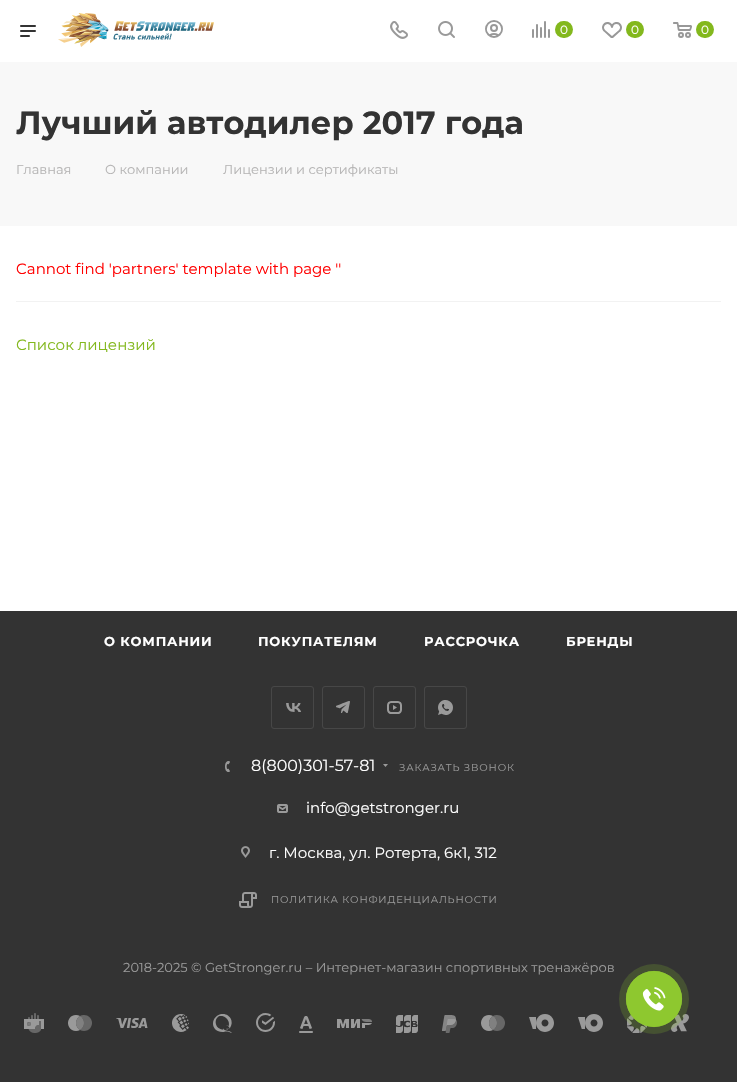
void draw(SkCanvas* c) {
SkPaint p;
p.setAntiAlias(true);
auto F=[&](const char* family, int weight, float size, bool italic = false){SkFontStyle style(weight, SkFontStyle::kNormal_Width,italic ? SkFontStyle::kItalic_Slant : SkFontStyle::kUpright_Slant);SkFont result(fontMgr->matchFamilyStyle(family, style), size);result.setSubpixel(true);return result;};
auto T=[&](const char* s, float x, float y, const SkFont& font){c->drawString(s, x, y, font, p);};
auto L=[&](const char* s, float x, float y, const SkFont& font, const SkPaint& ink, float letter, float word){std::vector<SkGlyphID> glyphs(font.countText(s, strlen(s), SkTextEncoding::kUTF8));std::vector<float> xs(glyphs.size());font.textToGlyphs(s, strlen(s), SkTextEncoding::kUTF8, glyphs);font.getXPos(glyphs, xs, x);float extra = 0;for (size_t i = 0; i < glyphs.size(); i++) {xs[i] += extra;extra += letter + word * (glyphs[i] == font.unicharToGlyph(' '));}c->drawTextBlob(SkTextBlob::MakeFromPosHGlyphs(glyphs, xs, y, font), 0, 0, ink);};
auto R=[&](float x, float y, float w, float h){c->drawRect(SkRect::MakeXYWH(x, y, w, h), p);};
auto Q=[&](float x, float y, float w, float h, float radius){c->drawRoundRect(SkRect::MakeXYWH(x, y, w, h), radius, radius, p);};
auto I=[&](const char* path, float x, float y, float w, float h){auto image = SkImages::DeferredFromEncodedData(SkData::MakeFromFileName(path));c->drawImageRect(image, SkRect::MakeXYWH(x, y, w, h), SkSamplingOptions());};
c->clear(0xffffffff);
p.setColor(0xfff8f8f8);
R(0,62,737,164);
I("1.png",20,25,16,12);
I("2.png",58,13,156,34);
I("3.png",390,21,18,18);
I("4.png",438,21,17,17);
I("5.png",485,20,18,18);
I("6.png",532,21,18,17);
p.setColor(0xff83b81d);
Q(555,21,18,17,8.5);
auto f1 = F("Montserrat",400,12);
p.setColor(0xffffffff);
T("0",560,34,f1);
I("7.png",602,22,20,16);
p.setColor(0xff83b81d);
Q(626,21,18,17,8.5);
p.setColor(0xffffffff);
T("0",631,34,f1);
I("8.png",673,22,19,16);
p.setColor(0xff83b81d);
Q(696,21,18,17,8.5);
p.setColor(0xffffffff);
T("0",701,34,f1);
auto f2 = F("Montserrat",700,32);
p.setColor(0xff333333);
T("Лучший автодилер 2017 года",16,134,f2);
auto f3 = F("Montserrat",400,13);
p.setColor(0xffb6b5b5);
T("Главная",16,174,f3);
T("О компании",105,174,f3);
T("Лицензии и сертификаты",223,174,f3);
auto f4 = F("Montserrat",400,15);
p.setColor(0xffff0000);
T("Cannot find 'partners' template with page ''",16,274,f4);
p.setColor(0xfff2f2f2);
R(16,301,705,1);
p.setColor(0xff83b81d);
T("Список лицензий",16,350,f4);
p.setColor(0xff333333);
R(0,611,737,471);
auto f5 = F("Montserrat",700,13);
p.setColor(0xffffffff);
L("О КОМПАНИИ",104,646,f5,p,.8,0);
L("ПОКУПАТЕЛЯМ",258,646,f5,p,.8,0);
L("РАССРОЧКА",424,646,f5,p,.8,0);
L("БРЕНДЫ",566,646,f5,p,.8,0);
I("9.png",286,703,15,9);
p.setStroke(true);
p.setStrokeWidth(1);
p.setColor(0xff474747);
c->drawRoundRect(SkRect::MakeXYWH(271.5,686.5,42,42),2.5,2.5,p);
I("10.png",336,701,14,12);
c->drawRoundRect(SkRect::MakeXYWH(322.5,686.5,42,42),2.5,2.5,p);
I("11.png",387,701,15,13);
c->drawRoundRect(SkRect::MakeXYWH(373.5,686.5,42,42),2.5,2.5,p);
I("12.png",438,700,15,15);
c->drawRoundRect(SkRect::MakeXYWH(424.5,686.5,42,42),2.5,2.5,p);
I("13.png",225,761,5,11);
auto f6 = F("Montserrat",400,16);
p.setStroke(false);
p.setColor(0xffffffff);
T("8(800)301-57-81",251,771,f6);
I("14.png",383,764,5,3);
auto f7 = F("Montserrat",400,10);
p.setColor(0xff999999);
L("ЗАКАЗАТЬ ЗВОНОК",399,771,f7,p,.8,0);
I("15.png",277,804,11,9);
p.setColor(0xffffffff);
T("info@getstronger.ru",306,813,f4);
I("16.png",241,846,9,12);
T("г. Москва, ул. Ротерта, 6к1, 312",269,858,f4);
I("17.png",239,892,18,16);
p.setColor(0xff999999);
L("ПОЛИТИКА КОНФИДЕНЦИАЛЬНОСТИ",271,903,f7,p,.8,0);
T("2018-2025 © GetStronger.ru – Интернет-магазин спортивных тренажёров",123,972,f3);
I("18.png",24,1013,20,20);
I("19.png",68,1015,24,16);
I("20.png",116,1018,32,10);
I("21.png",172,1014,17,18);
I("22.png",213,1014,19,19);
I("23.png",256,1013,19,19);
I("24.png",299,1016,14,17);
I("25.png",337,1019,35,9);
I("26.png",396,1015,22,18);
I("27.png",442,1015,15,18);
I("19.png",481,1015,24,16);
I("28.png",529,1014,25,18);
I("28.png",578,1014,25,18);
I("29.png",627,1015,20,18);
I("30.png",671,1014,18,18);
p.setColor(0x338ec82f);
c->drawCircle(654,999,35,p);
p.setStroke(true);
p.setStrokeWidth(.8);
p.setColor(0xff8ec82f);
c->drawCircle(654,999,27.6,p);
p.setStroke(false);
c->drawCircle(654,999,28,p);
I("31.png",642,987,24,24);
}
